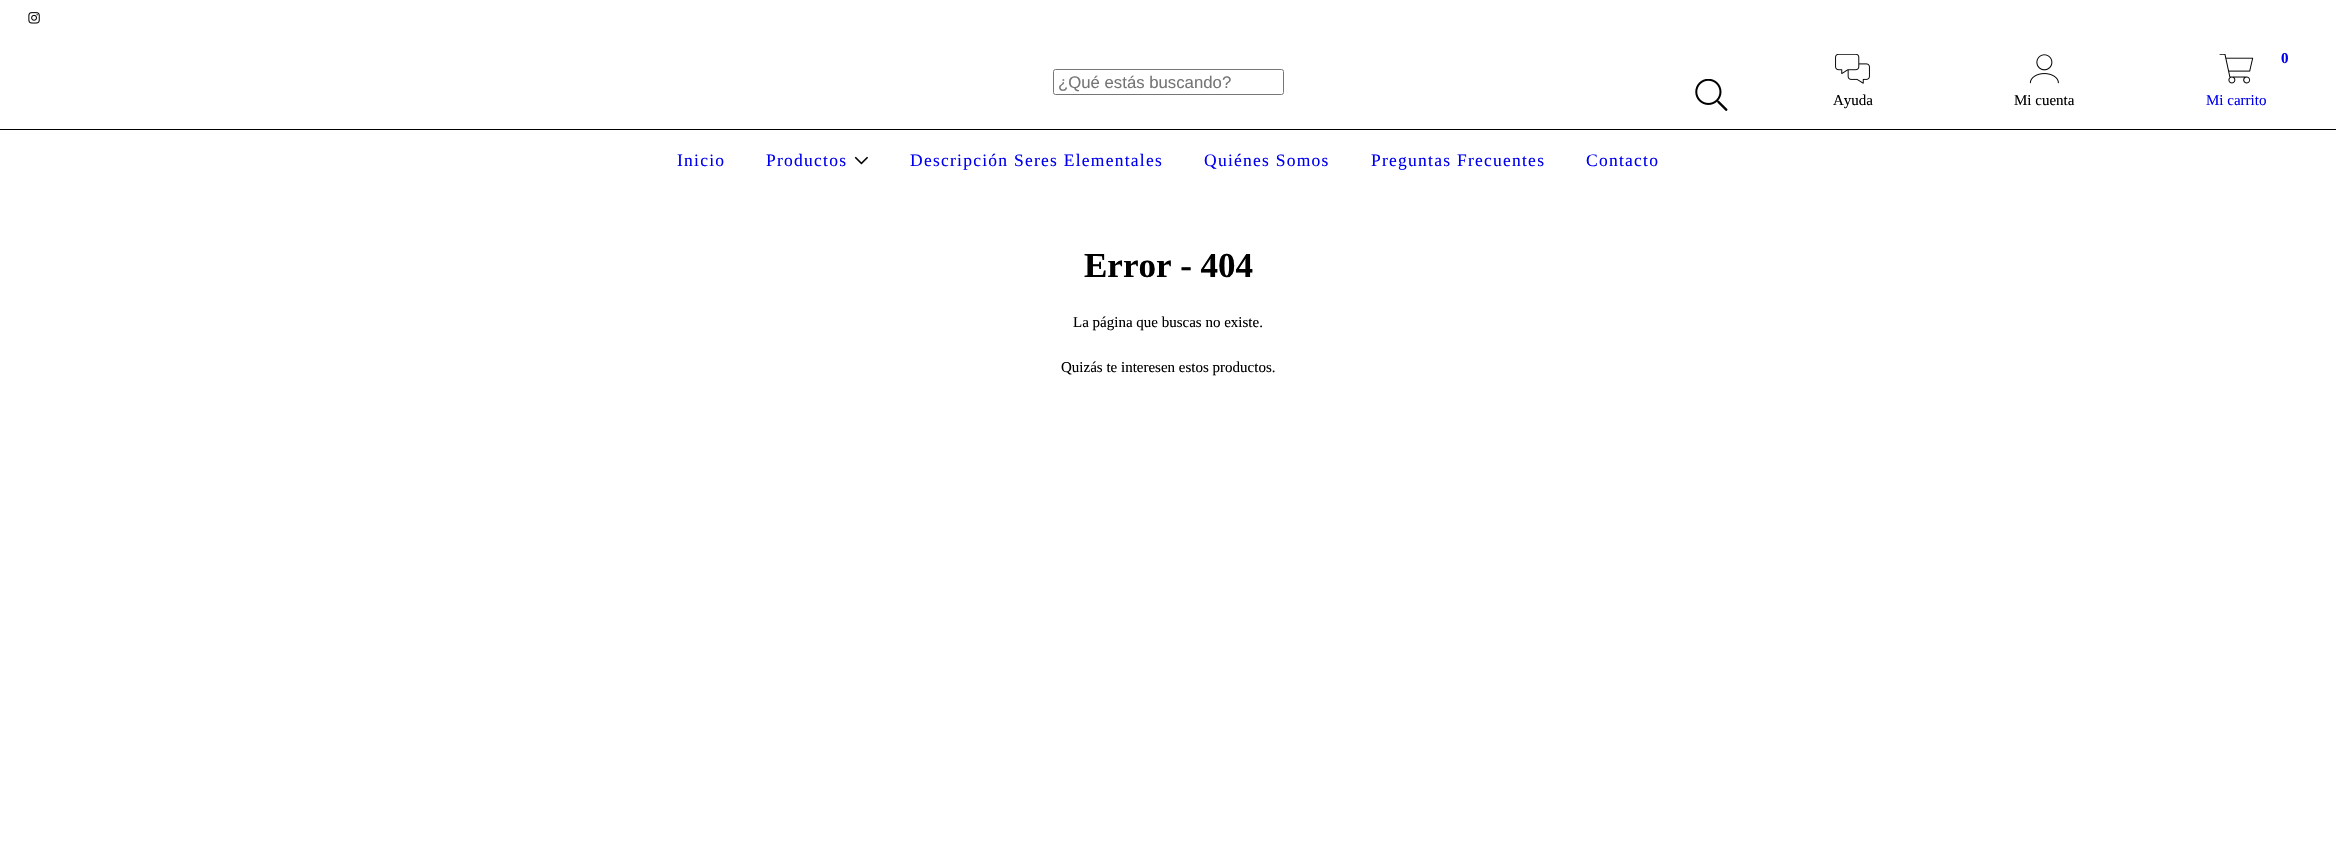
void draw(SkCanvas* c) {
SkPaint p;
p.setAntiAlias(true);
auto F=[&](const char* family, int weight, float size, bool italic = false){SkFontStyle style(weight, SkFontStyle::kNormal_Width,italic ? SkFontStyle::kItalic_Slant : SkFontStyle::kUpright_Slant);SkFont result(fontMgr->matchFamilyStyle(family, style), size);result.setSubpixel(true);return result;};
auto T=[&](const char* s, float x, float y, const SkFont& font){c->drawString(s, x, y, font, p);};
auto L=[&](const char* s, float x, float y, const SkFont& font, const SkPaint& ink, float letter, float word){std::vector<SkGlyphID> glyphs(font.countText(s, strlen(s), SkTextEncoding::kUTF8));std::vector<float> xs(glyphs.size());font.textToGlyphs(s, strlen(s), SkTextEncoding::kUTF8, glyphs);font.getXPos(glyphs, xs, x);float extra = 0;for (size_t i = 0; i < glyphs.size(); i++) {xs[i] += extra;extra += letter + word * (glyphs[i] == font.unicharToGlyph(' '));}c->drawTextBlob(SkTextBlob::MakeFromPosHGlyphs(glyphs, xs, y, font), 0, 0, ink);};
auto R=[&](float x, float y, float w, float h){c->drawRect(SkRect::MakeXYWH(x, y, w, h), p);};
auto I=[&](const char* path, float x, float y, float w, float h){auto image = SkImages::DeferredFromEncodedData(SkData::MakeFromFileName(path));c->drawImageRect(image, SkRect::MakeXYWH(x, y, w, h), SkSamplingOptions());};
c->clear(0xffffffff);
I("1.png",28,12,12,12);
p.setStroke(true);
p.setStrokeWidth(1);
p.setColor(0xff767676);
c->drawRoundRect(SkRect::MakeXYWH(1053.5,69.5,230,25),2,2,p);
auto f1 = F("Liberation Sans",400,16.75);
p.setStroke(false);
p.setColor(0xff757575);
T("¿Qué estás buscando?",1058,88,f1);
I("2.png",1695,79,33,32);
I("3.png",1835,54,35,30);
auto f2 = F("Liberation Serif",400,15);
p.setColor(0xff000000);
T("Ayuda",1833,105,f2);
I("4.png",2029,54,30,30);
T("Mi cuenta",2014,105,f2);
I("5.png",2219,54,35,30);
auto f3 = F("Liberation Serif",700,15);
p.setColor(0xff0000ee);
T("0",2281,63,f3);
T("Mi carrito",2206,105,f2);
p.setColor(0xff000000);
R(0,129,2336,1);
auto f4 = F("Liberation Serif",400,17.5);
p.setColor(0xff0000ee);
L("Inicio",677,166,f4,p,1.25,0);
L("Productos",766,166,f4,p,1.25,0);
I("6.png",854,156,14,9);
L("Descripción Seres Elementales",910,166,f4,p,1.25,0);
L("Quiénes Somos",1204,166,f4,p,1.25,0);
L("Preguntas Frecuentes",1371,166,f4,p,1.25,0);
L("Contacto",1586,166,f4,p,1.25,0);
auto f5 = F("Liberation Serif",700,35);
p.setColor(0xff000000);
T("Error - 404",1084,277,f5);
T("La página que buscas no existe.",1073,327,f2);
T("Quizás te interesen estos productos.",1061,372,f2);
}
